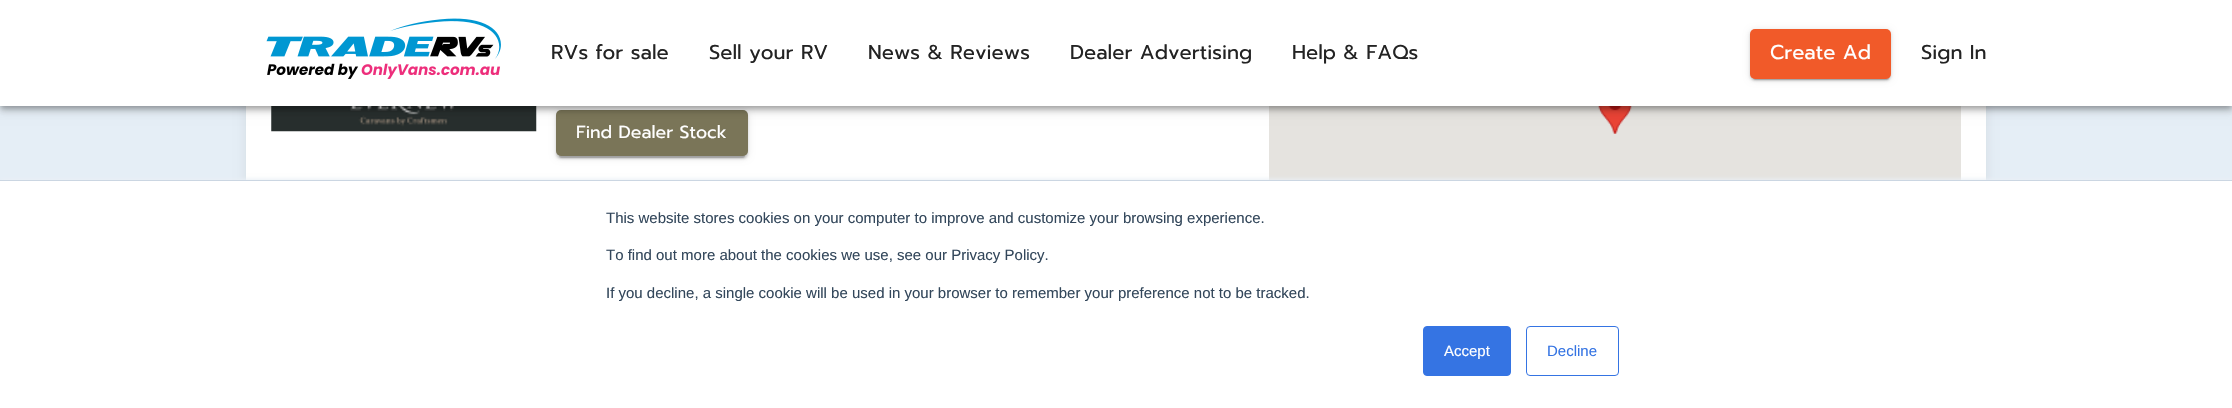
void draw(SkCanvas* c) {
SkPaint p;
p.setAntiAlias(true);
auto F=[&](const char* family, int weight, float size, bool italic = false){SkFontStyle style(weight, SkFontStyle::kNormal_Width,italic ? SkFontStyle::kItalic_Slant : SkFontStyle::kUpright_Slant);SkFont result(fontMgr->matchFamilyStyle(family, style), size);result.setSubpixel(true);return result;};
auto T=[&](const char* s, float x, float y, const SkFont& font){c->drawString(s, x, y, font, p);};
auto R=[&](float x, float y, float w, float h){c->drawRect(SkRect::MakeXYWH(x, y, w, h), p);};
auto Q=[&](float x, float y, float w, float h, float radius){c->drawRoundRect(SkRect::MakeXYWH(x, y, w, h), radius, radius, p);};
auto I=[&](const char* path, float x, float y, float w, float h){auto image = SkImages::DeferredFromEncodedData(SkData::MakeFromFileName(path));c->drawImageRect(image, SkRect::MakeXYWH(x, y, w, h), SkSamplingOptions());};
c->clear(0xffe5eef6);
p.setColor(0x14000000);
p.setMaskFilter(SkMaskFilter::MakeBlur(kNormal_SkBlurStyle, 6));
c->drawRoundRect(SkRect::MakeXYWH(246,-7,1740,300),5,5,p);
p.setMaskFilter(nullptr);
p.setColor(0xffffffff);
R(246,106,1740,74);
I("2.png",271,106,266,26);
p.setColor(0x1f000000);
p.setMaskFilter(SkMaskFilter::MakeBlur(kNormal_SkBlurStyle, 3));
c->drawRoundRect(SkRect::MakeXYWH(556,111,192,47),5,5,p);
p.setMaskFilter(nullptr);
p.setColor(0x24000000);
p.setMaskFilter(SkMaskFilter::MakeBlur(kNormal_SkBlurStyle, 1));
c->drawRoundRect(SkRect::MakeXYWH(556,113,192,46),5,5,p);
p.setMaskFilter(nullptr);
p.setColor(0x33000000);
p.setMaskFilter(SkMaskFilter::MakeBlur(kNormal_SkBlurStyle, .5));
c->drawRoundRect(SkRect::MakeXYWH(559,116,186,42),2.5,2.5,p);
p.setMaskFilter(nullptr);
p.setColor(0xff7a7558);
Q(556,110,192,46,5);
p.setColor(0xffe5e3df);
R(1269,106,692,74);
I("3.png",1598,106,34,28);
p.setColor(0x1f000000);
p.setMaskFilter(SkMaskFilter::MakeBlur(kNormal_SkBlurStyle, 6));
c->drawRect(SkRect::MakeXYWH(0,1,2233,107),p);
p.setMaskFilter(nullptr);
p.setColor(0x24000000);
p.setMaskFilter(SkMaskFilter::MakeBlur(kNormal_SkBlurStyle, 3));
c->drawRect(SkRect::MakeXYWH(0,5,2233,106),p);
p.setMaskFilter(nullptr);
p.setColor(0x33000000);
p.setMaskFilter(SkMaskFilter::MakeBlur(kNormal_SkBlurStyle, 2.5));
c->drawRect(SkRect::MakeXYWH(1,4,2230,104),p);
p.setMaskFilter(nullptr);
p.setColor(0xffffffff);
R(0,0,2232,106);
I("1.png",266,18,235,61);
auto f1 = F("Prompt",400,20);
p.setColor(0xff232323);
T("RVs for sale",551,59,f1);
T("Sell your RV",709,59,f1);
T("News & Reviews",868,59,f1);
T("Dealer Advertising",1070,59,f1);
T("Help & FAQs",1292,59,f1);
p.setColor(0x1f000000);
p.setMaskFilter(SkMaskFilter::MakeBlur(kNormal_SkBlurStyle, 3));
c->drawRoundRect(SkRect::MakeXYWH(1750,30,141,50),5,5,p);
p.setMaskFilter(nullptr);
p.setColor(0x24000000);
p.setMaskFilter(SkMaskFilter::MakeBlur(kNormal_SkBlurStyle, 1));
c->drawRoundRect(SkRect::MakeXYWH(1750,31,141,50),5,5,p);
p.setMaskFilter(nullptr);
p.setColor(0x33000000);
p.setMaskFilter(SkMaskFilter::MakeBlur(kNormal_SkBlurStyle, .5));
c->drawRoundRect(SkRect::MakeXYWH(1753,35,136,45),2.5,2.5,p);
p.setMaskFilter(nullptr);
p.setColor(0xfff15a29);
Q(1750,29,141,50,5);
p.setColor(0xffffffff);
T("Create Ad",1770,59,f1);
p.setColor(0xff232323);
T("Sign In",1921,59,f1);
auto f2 = F("Prompt",400,17.5);
p.setColor(0xffffffff);
T("Find Dealer Stock",576,138,f2);
p.setColor(0xffeaf0f6);
p.setMaskFilter(SkMaskFilter::MakeBlur(kNormal_SkBlurStyle, 2));
c->drawRect(SkRect::MakeXYWH(0,179,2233,229),p);
p.setMaskFilter(nullptr);
p.setColor(0xffffffff);
R(0,181,2232,227);
p.setColor(0xffcbd6e2);
R(0,180,2232,1);
auto f3 = F("Liberation Sans",400,15);
p.setColor(0xff33475b);
T("This website stores cookies on your computer to improve and customize your browsing experience.",606,223,f3);
T("To find out more about the cookies we use, see our Privacy Policy.",606,260,f3);
T("If you decline, a single cookie will be used in your browser to remember your preference not to be tracked.",606,298,f3);
p.setColor(0xff3574e3);
c->drawRoundRect(SkRect::MakeXYWH(1423.5,326.5,87,49),3.5,3.5,p);
p.setStroke(true);
p.setStrokeWidth(1);
c->drawRoundRect(SkRect::MakeXYWH(1423.5,326.5,87,49),3.5,3.5,p);
p.setStroke(false);
p.setColor(0xffffffff);
T("Accept",1444,356,f3);
p.setStroke(true);
p.setColor(0xff3574e3);
c->drawRoundRect(SkRect::MakeXYWH(1526.5,326.5,92,49),3.5,3.5,p);
p.setStroke(false);
T("Decline",1547,356,f3);
}
